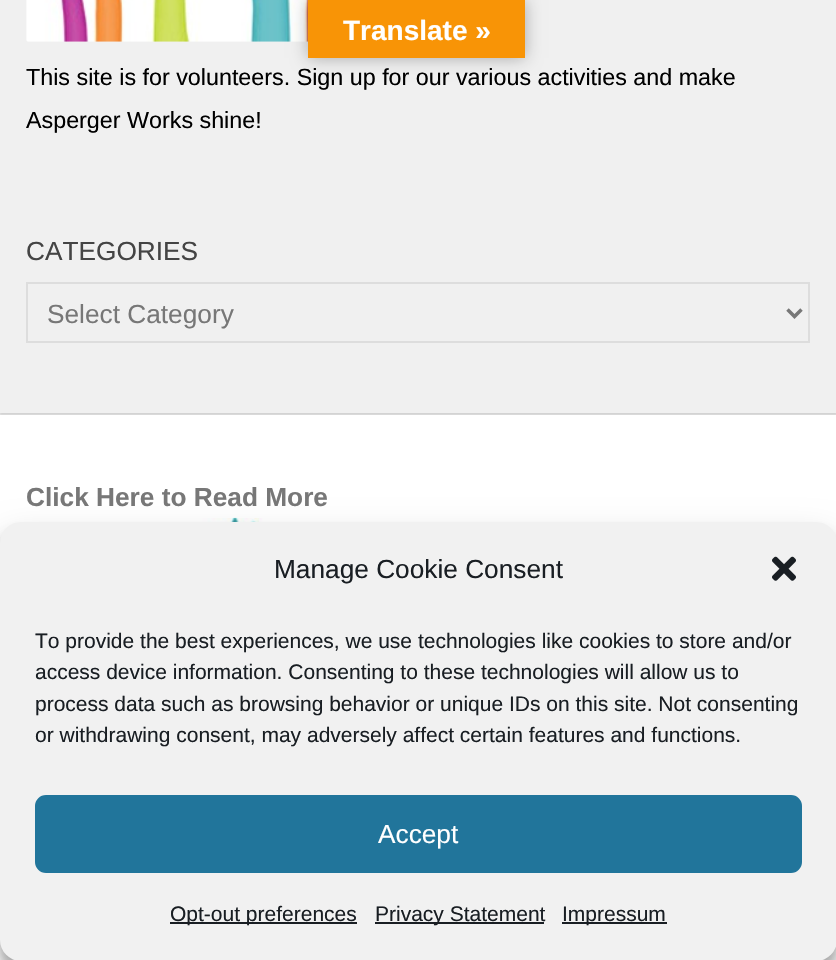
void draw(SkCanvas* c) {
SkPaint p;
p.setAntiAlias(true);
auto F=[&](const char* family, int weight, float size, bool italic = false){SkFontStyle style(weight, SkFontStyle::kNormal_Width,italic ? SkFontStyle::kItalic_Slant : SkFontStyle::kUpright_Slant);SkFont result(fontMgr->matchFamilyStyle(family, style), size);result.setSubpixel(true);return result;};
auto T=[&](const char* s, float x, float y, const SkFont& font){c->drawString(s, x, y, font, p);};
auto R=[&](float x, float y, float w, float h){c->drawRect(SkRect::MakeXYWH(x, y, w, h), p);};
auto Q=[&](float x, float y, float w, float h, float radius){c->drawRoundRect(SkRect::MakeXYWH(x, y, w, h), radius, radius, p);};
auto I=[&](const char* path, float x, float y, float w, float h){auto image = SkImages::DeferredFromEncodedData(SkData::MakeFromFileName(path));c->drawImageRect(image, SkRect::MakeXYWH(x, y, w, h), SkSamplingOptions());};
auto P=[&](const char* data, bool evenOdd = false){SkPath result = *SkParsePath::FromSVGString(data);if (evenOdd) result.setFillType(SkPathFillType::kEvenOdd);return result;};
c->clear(0xffeaeaea);
p.setColor(0x1a000000);
p.setMaskFilter(SkMaskFilter::MakeBlur(kNormal_SkBlurStyle, 1));
c->drawRect(SkRect::MakeXYWH(0,-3,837,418),p);
p.setMaskFilter(nullptr);
p.setColor(0xfff0f0f0);
R(0,0,836,413);
I("1.png",26,0,282,42);
p.setColor(0x4d000000);
p.setMaskFilter(SkMaskFilter::MakeBlur(kNormal_SkBlurStyle, 8));
c->drawRect(SkRect::MakeXYWH(308,0,217,58),p);
p.setMaskFilter(nullptr);
p.setColor(0xfff89406);
R(308,0,217,58);
auto f1 = F("Liberation Sans",700,28);
p.setColor(0xffffffff);
T("Translate »",343,40,f1);
auto f2 = F("Liberation Sans",400,23.3);
p.setColor(0xff000000);
T("This site is for volunteers. Sign up for our various activities and make",26,85,f2);
T("Asperger Works shine!",26,128,f2);
auto f3 = F("Liberation Sans",400,26.25);
p.setColor(0xff444444);
T("CATEGORIES",26,260,f3);
p.setStroke(true);
p.setStrokeWidth(2);
p.setColor(0xffdddddd);
c->drawRect(SkRect::MakeXYWH(27,283,782,59),p);
p.setStrokeWidth(3.5);
p.setColor(0xff777777);
c->drawPath(P("M787.5 309.5l7 7l7-7"),p);
p.setStroke(false);
T("Select Category",47,323,f3);
p.setColor(0xffffffff);
R(0,415,836,128);
auto f4 = F("Liberation Sans",700,26.25);
p.setColor(0xff777777);
T("Click Here to Read More",26,506,f4);
I("2.png",26,517,368,5);
p.setColor(0xffffffff);
R(0,940,836,20);
p.setColor(0x3b000000);
p.setMaskFilter(SkMaskFilter::MakeBlur(kNormal_SkBlurStyle, 5));
c->drawRoundRect(SkRect::MakeXYWH(0,532,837,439),21,21,p);
p.setMaskFilter(nullptr);
p.setColor(0x30000000);
p.setMaskFilter(SkMaskFilter::MakeBlur(kNormal_SkBlurStyle, 17.5));
c->drawRoundRect(SkRect::MakeXYWH(0,539,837,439),21,21,p);
p.setMaskFilter(nullptr);
p.setColor(0xfff1f1f1);
Q(0,522,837,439,21);
p.setColor(0xff191e23);
T("Manage Cookie Consent",274,578,f3);
I("3.png",772,556,24,25);
auto f5 = F("Liberation Sans",400,21);
T("To provide the best experiences, we use technologies like cookies to store and/or",35,648,f5);
T("access device information. Consenting to these technologies will allow us to",35,679,f5);
T("process data such as browsing behavior or unique IDs on this site. Not consenting",35,711,f5);
T("or withdrawing consent, may adversely affect certain features and functions.",35,742,f5);
p.setColor(0xff21759b);
c->drawRoundRect(SkRect::MakeXYWH(36,796,765,76),10,10,p);
p.setStroke(true);
p.setStrokeWidth(2);
c->drawRoundRect(SkRect::MakeXYWH(36,796,765,76),10,10,p);
p.setStroke(false);
p.setColor(0xffffffff);
T("Accept",378,843,f3);
p.setColor(0xff191e23);
R(170,922,187,2);
T("Opt-out preferences",170,921,f5);
R(375,922,169,2);
T("Privacy Statement",375,921,f5);
R(562,922,105,2);
T("Impressum",562,921,f5);
}
